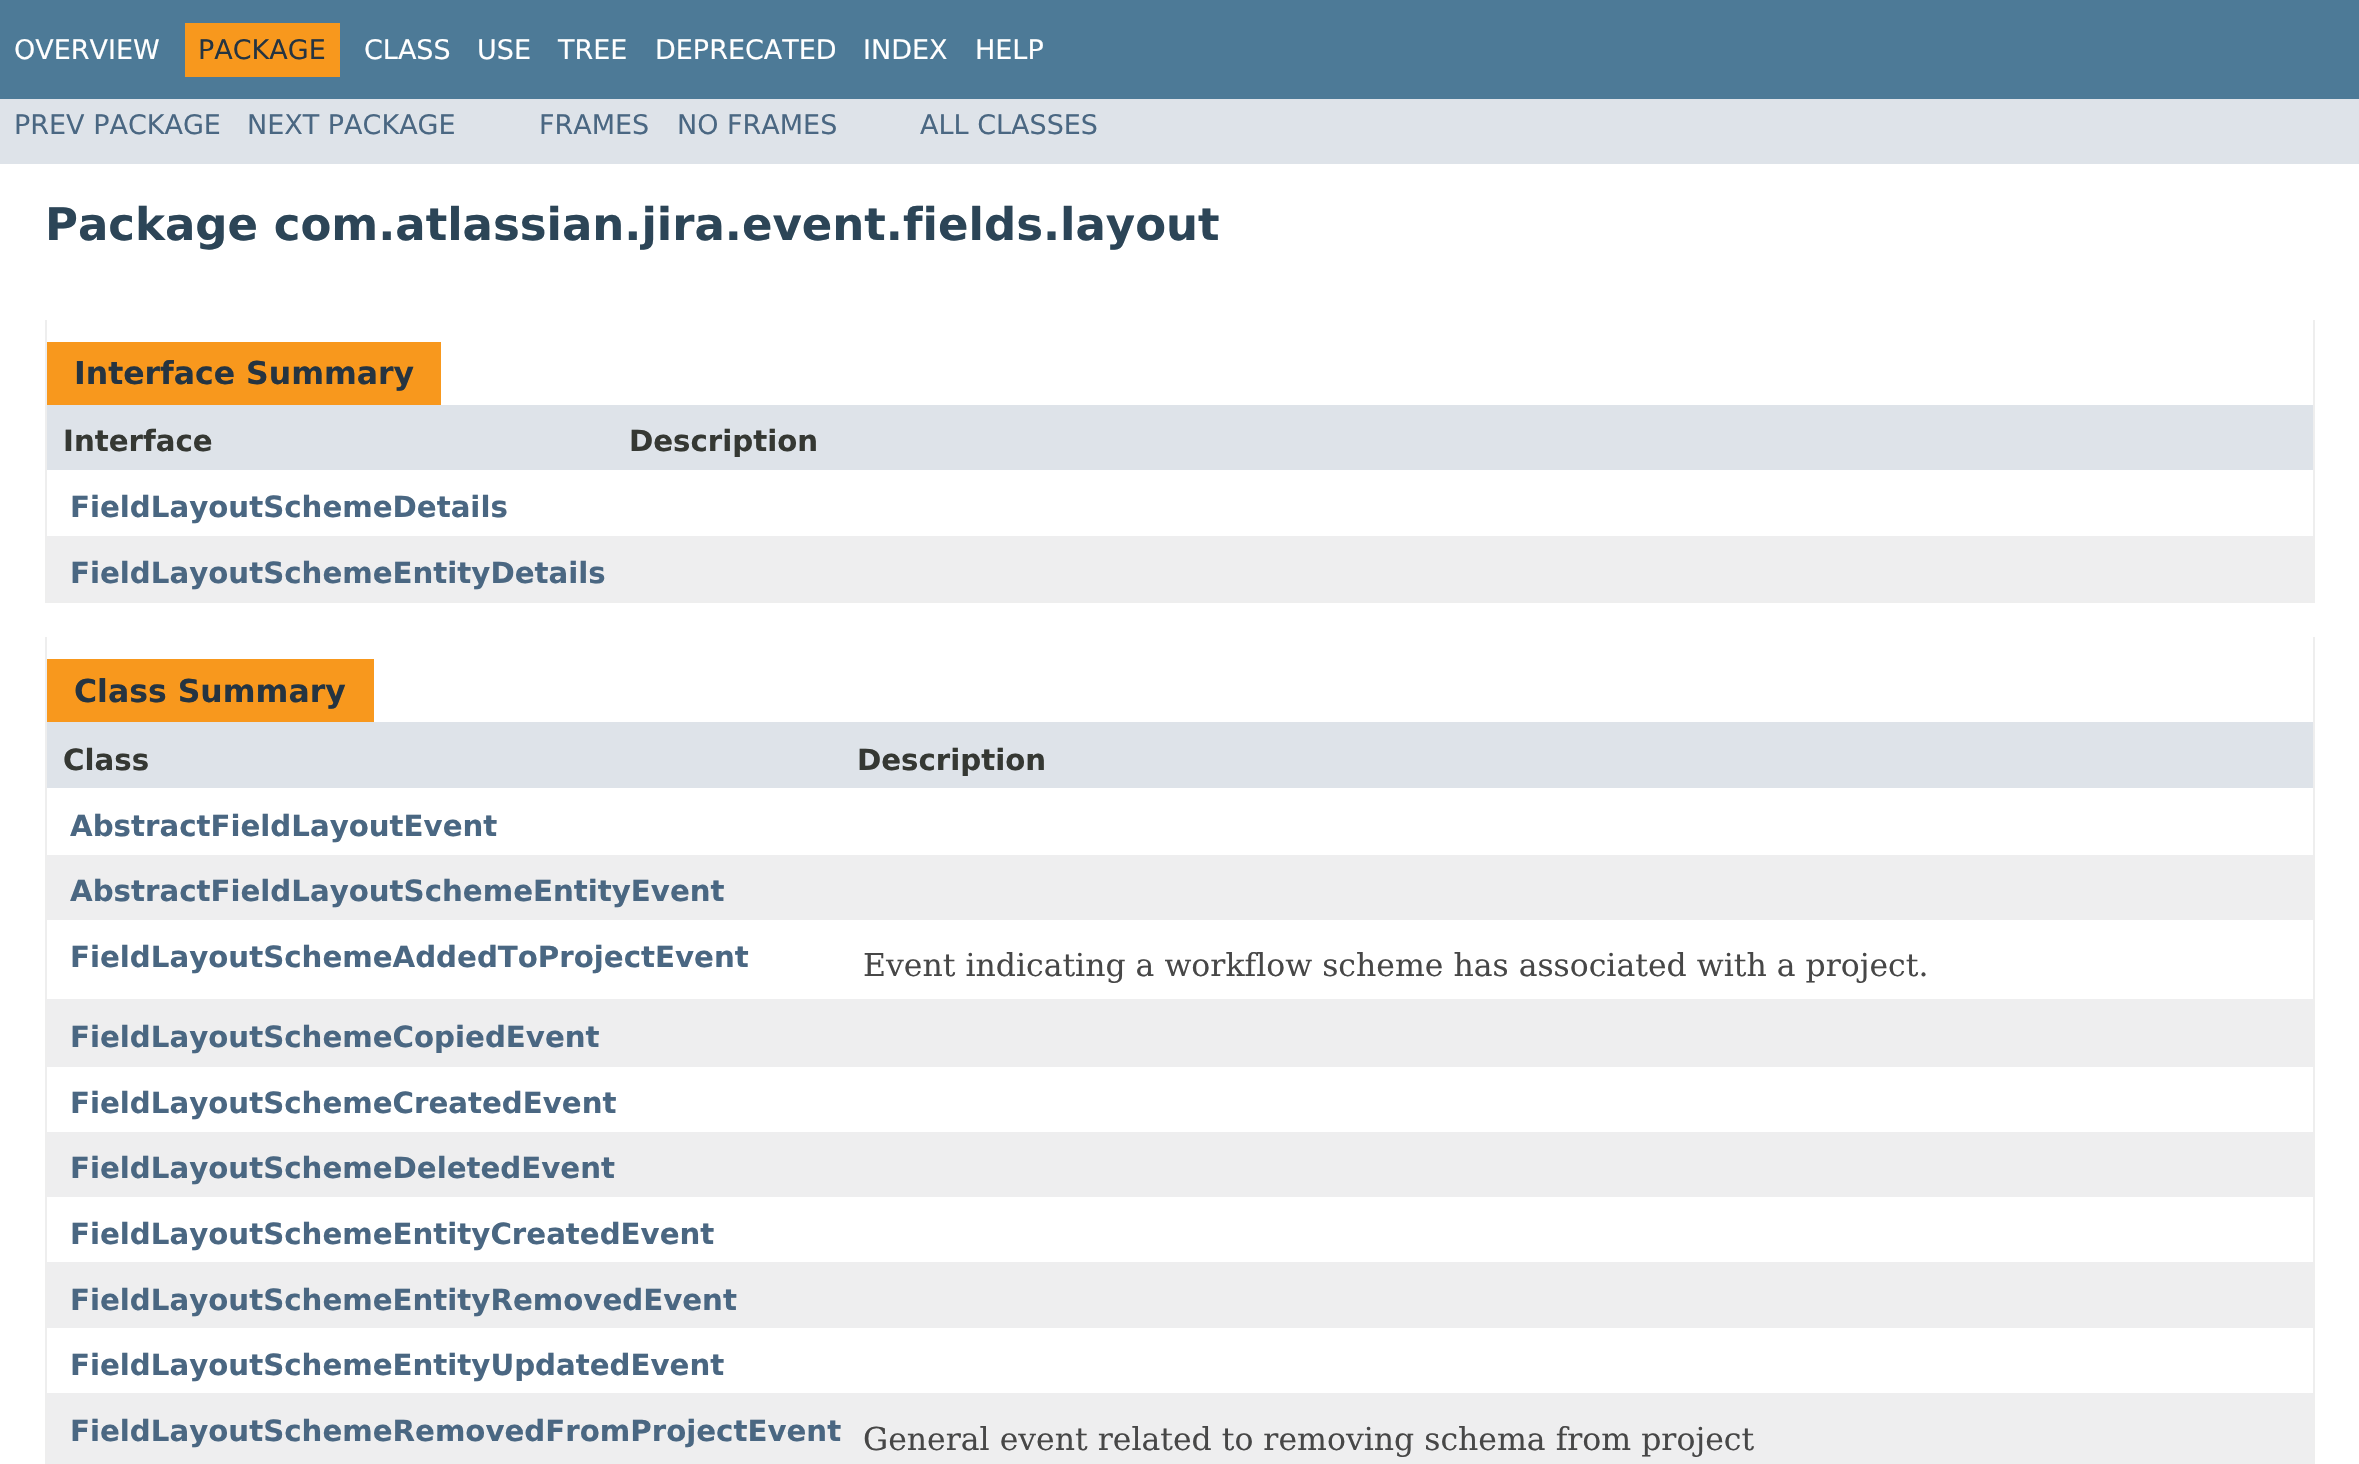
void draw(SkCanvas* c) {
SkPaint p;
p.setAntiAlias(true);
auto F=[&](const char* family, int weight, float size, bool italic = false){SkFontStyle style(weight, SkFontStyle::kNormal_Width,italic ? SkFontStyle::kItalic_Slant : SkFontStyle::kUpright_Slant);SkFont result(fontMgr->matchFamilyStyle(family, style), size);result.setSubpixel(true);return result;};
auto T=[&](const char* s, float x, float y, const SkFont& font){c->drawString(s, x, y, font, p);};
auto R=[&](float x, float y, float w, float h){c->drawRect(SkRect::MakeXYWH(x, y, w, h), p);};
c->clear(0xffffffff);
p.setColor(0xff4d7a97);
R(0,0,2359,99);
auto f1 = F("DejaVu Sans",400,27);
p.setColor(0xffffffff);
T("OVERVIEW",14,59,f1);
p.setColor(0xfff8981d);
R(185,23,155,54);
p.setColor(0xff253441);
T("PACKAGE",198,59,f1);
p.setColor(0xffffffff);
T("CLASS",364,59,f1);
T("USE",477,59,f1);
T("TREE",558,59,f1);
T("DEPRECATED",655,59,f1);
T("INDEX",863,59,f1);
T("HELP",975,59,f1);
p.setColor(0xffdee3e9);
R(0,99,2359,65);
p.setColor(0xff4a6782);
T("PREV PACKAGE",14,134,f1);
T("NEXT PACKAGE",247,134,f1);
T("FRAMES",539,134,f1);
T("NO FRAMES",677,134,f1);
T("ALL CLASSES",920,134,f1);
auto f2 = F("DejaVu Sans",700,45);
p.setColor(0xff2c4557);
T("Package com.atlassian.jira.event.fields.layout",45,240,f2);
p.setColor(0xffeeeeee);
R(2313,320,2,283);
R(45,601,2270,2);
R(45,320,2,283);
p.setColor(0xfff8981d);
R(47,342,394,63);
auto f3 = F("DejaVu Sans",700,31.5);
p.setColor(0xff253441);
T("Interface Summary",74,384,f3);
p.setColor(0xffdee3e9);
R(47,405,2266,65);
auto f4 = F("DejaVu Sans",700,29.25);
p.setColor(0xff353833);
T("Interface",63,451,f4);
T("Description",629,451,f4);
p.setColor(0xff4a6782);
T("FieldLayoutSchemeDetails",70,517,f4);
p.setColor(0xffeeeeef);
R(47,536,2266,65);
p.setColor(0xff4a6782);
T("FieldLayoutSchemeEntityDetails",70,583,f4);
p.setColor(0xffeeeeee);
R(2313,637,2,827);
R(45,637,2,827);
p.setColor(0xfff8981d);
R(47,659,327,63);
p.setColor(0xff253441);
T("Class Summary",74,702,f3);
p.setColor(0xffdee3e9);
R(47,722,2266,66);
p.setColor(0xff353833);
T("Class",63,770,f4);
T("Description",857,770,f4);
p.setColor(0xff4a6782);
T("AbstractFieldLayoutEvent",70,836,f4);
p.setColor(0xffeeeeef);
R(47,855,2266,65);
p.setColor(0xff4a6782);
T("AbstractFieldLayoutSchemeEntityEvent",70,901,f4);
T("FieldLayoutSchemeAddedToProjectEvent",70,967,f4);
auto f5 = F("DejaVu Serif",400,31.5);
p.setColor(0xff474747);
T("Event indicating a workflow scheme has associated with a project.",863,976,f5);
p.setColor(0xffeeeeef);
R(47,999,2266,68);
p.setColor(0xff4a6782);
T("FieldLayoutSchemeCopiedEvent",70,1047,f4);
T("FieldLayoutSchemeCreatedEvent",70,1113,f4);
p.setColor(0xffeeeeef);
R(47,1132,2266,65);
p.setColor(0xff4a6782);
T("FieldLayoutSchemeDeletedEvent",70,1178,f4);
T("FieldLayoutSchemeEntityCreatedEvent",70,1244,f4);
p.setColor(0xffeeeeef);
R(47,1262,2266,66);
p.setColor(0xff4a6782);
T("FieldLayoutSchemeEntityRemovedEvent",70,1310,f4);
T("FieldLayoutSchemeEntityUpdatedEvent",70,1375,f4);
p.setColor(0xffeeeeef);
R(47,1393,2266,71);
p.setColor(0xff4a6782);
T("FieldLayoutSchemeRemovedFromProjectEvent",70,1441,f4);
p.setColor(0xff474747);
T("General event related to removing schema from project",863,1450,f5);
}
